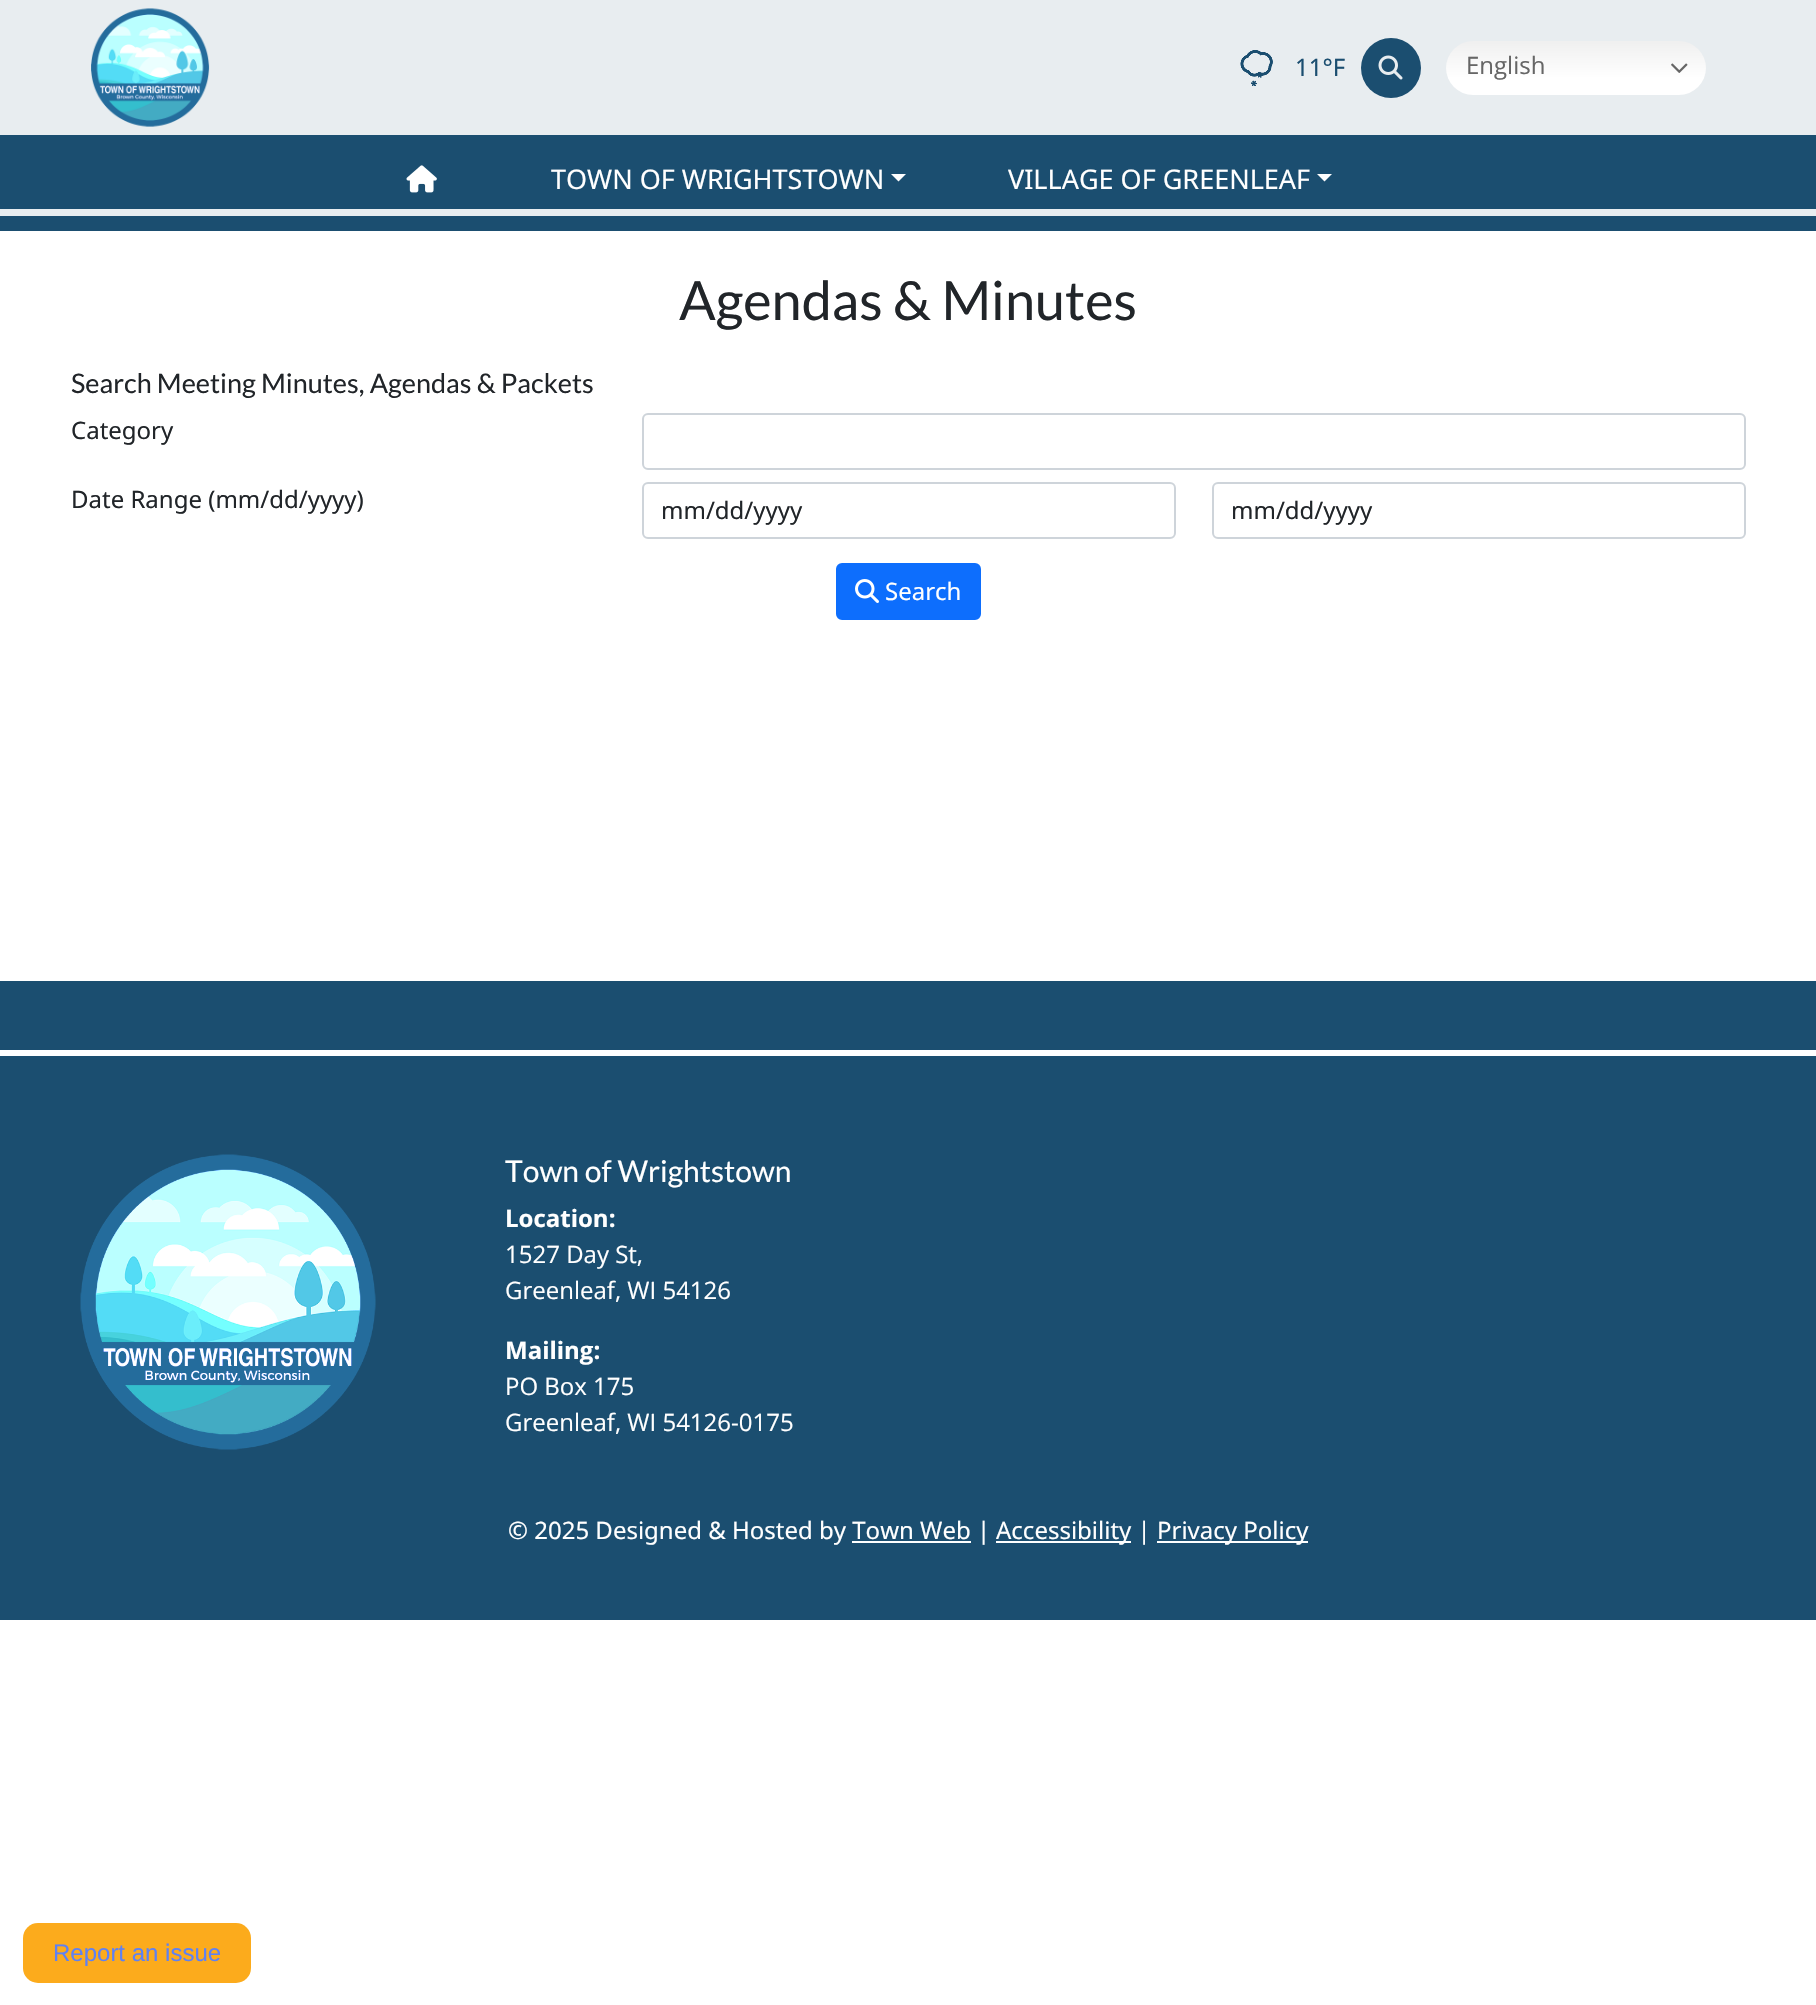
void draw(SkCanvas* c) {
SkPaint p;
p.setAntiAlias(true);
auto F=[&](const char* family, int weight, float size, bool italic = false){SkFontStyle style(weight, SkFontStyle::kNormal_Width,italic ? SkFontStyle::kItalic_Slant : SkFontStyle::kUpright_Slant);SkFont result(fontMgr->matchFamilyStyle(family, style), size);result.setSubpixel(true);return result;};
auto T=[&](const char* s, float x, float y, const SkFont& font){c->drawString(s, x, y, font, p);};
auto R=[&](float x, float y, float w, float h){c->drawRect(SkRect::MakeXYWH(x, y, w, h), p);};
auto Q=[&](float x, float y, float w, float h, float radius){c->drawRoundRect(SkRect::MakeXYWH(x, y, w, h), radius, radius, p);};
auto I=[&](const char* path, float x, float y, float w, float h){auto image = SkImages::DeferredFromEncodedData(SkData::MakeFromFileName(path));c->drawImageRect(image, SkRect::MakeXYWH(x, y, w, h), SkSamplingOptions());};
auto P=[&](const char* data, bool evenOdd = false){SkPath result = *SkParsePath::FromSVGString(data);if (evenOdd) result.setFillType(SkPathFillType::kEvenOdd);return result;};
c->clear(0xffffffff);
p.setColor(0xffe8edf0);
R(0,0,1816,135);
I("1.png",91,8,119,119);
I("2.png",1240,50,33,36);
auto f1 = F("Noto Sans",400,24);
p.setColor(0xff1b4e70);
T("11°F",1295,76,f1);
c->drawCircle(1391,68,30,p);
I("3.png",1378,55,25,25);
{
const SkColor colors[] = {0xffefefef,0xffffffff};
const float stops[] = {0,.7};
const SkPoint ends[] = {{1576,40}, {1576,95}};
p.setShader(SkGradientShader::MakeLinear(ends, colors, stops, 2, SkTileMode::kClamp));
p.setAlpha(255);
}
Q(1446,41,260,54,27);
auto f2 = F("Open Sans",400,24);
p.setShader(nullptr);
p.setColor(0xff666666);
T("English",1466,74,f2);
I("4.png",1671,63,17,10);
p.setColor(0xff1b4e70);
R(0,135,1816,96);
I("5.png",406,165,31,28);
auto f3 = F("Noto Sans",400,27);
p.setColor(0xffffffff);
T("TOWN OF WRIGHTSTOWN",551,189,f3);
c->drawPath(P("M891 174h15l-7.5 7.5z"),p);
T("VILLAGE OF GREENLEAF",1008,189,f3);
c->drawPath(P("M1317 174h15l-7.5 7.5z"),p);
p.setColor(0xffe8edf0);
R(0,209,1816,7);
auto f4 = F("Lato",400,54);
p.setColor(0xff212529);
T("Agendas & Minutes",679,320,f4);
auto f5 = F("Lato",400,27);
T("Search Meeting Minutes, Agendas & Packets",71,393,f5);
T("Category",71,439,f1);
p.setStroke(true);
p.setStrokeWidth(2);
p.setColor(0xffced4da);
c->drawRoundRect(SkRect::MakeXYWH(643,414,1102,55),5,5,p);
p.setStroke(false);
p.setColor(0xff212529);
T("Date Range (mm/dd/yyyy)",71,508,f1);
p.setStroke(true);
p.setColor(0xffced4da);
c->drawRoundRect(SkRect::MakeXYWH(643,483,532,55),5,5,p);
p.setStroke(false);
p.setColor(0xff212529);
T("mm/dd/yyyy",661,519,f1);
p.setStroke(true);
p.setColor(0xffced4da);
c->drawRoundRect(SkRect::MakeXYWH(1213,483,532,55),5,5,p);
p.setStroke(false);
p.setColor(0xff212529);
T("mm/dd/yyyy",1231,519,f1);
p.setColor(0xff0d6efd);
c->drawRoundRect(SkRect::MakeXYWH(837,564,143,55),5,5,p);
p.setStroke(true);
c->drawRoundRect(SkRect::MakeXYWH(837,564,143,55),5,5,p);
I("6.png",855,579,24,24);
p.setStroke(false);
p.setColor(0xffffffff);
T("Search",885,600,f1);
p.setColor(0xff1b4e70);
R(0,981,1816,639);
p.setColor(0xffffffff);
R(0,1050,1816,6);
I("7.png",80,1154,296,296);
auto f6 = F("Lato",400,30);
T("Town of Wrightstown",505,1182,f6);
auto f7 = F("Open Sans",700,24);
T("Location:",505,1227,f7);
T("1527 Day St,",505,1263,f2);
T("Greenleaf, WI 54126",505,1299,f2);
T("Mailing:",505,1359,f7);
T("PO Box 175",505,1395,f2);
T("Greenleaf, WI 54126-0175",505,1431,f2);
T("© 2025 Designed & Hosted by Town Web |",508,1539,f1);
R(996,1541,135,2);
T("Accessibility |",996,1539,f1);
R(1157,1541,151,2);
T("Privacy Policy",1157,1539,f1);
R(852,1541,119,2);
p.setColor(0xfffcab1c);
Q(23,1923,228,60,15);
auto f8 = F("Liberation Sans",400,24);
p.setColor(0xff5e81f4);
T("Report an issue",53,1961,f8);
}
